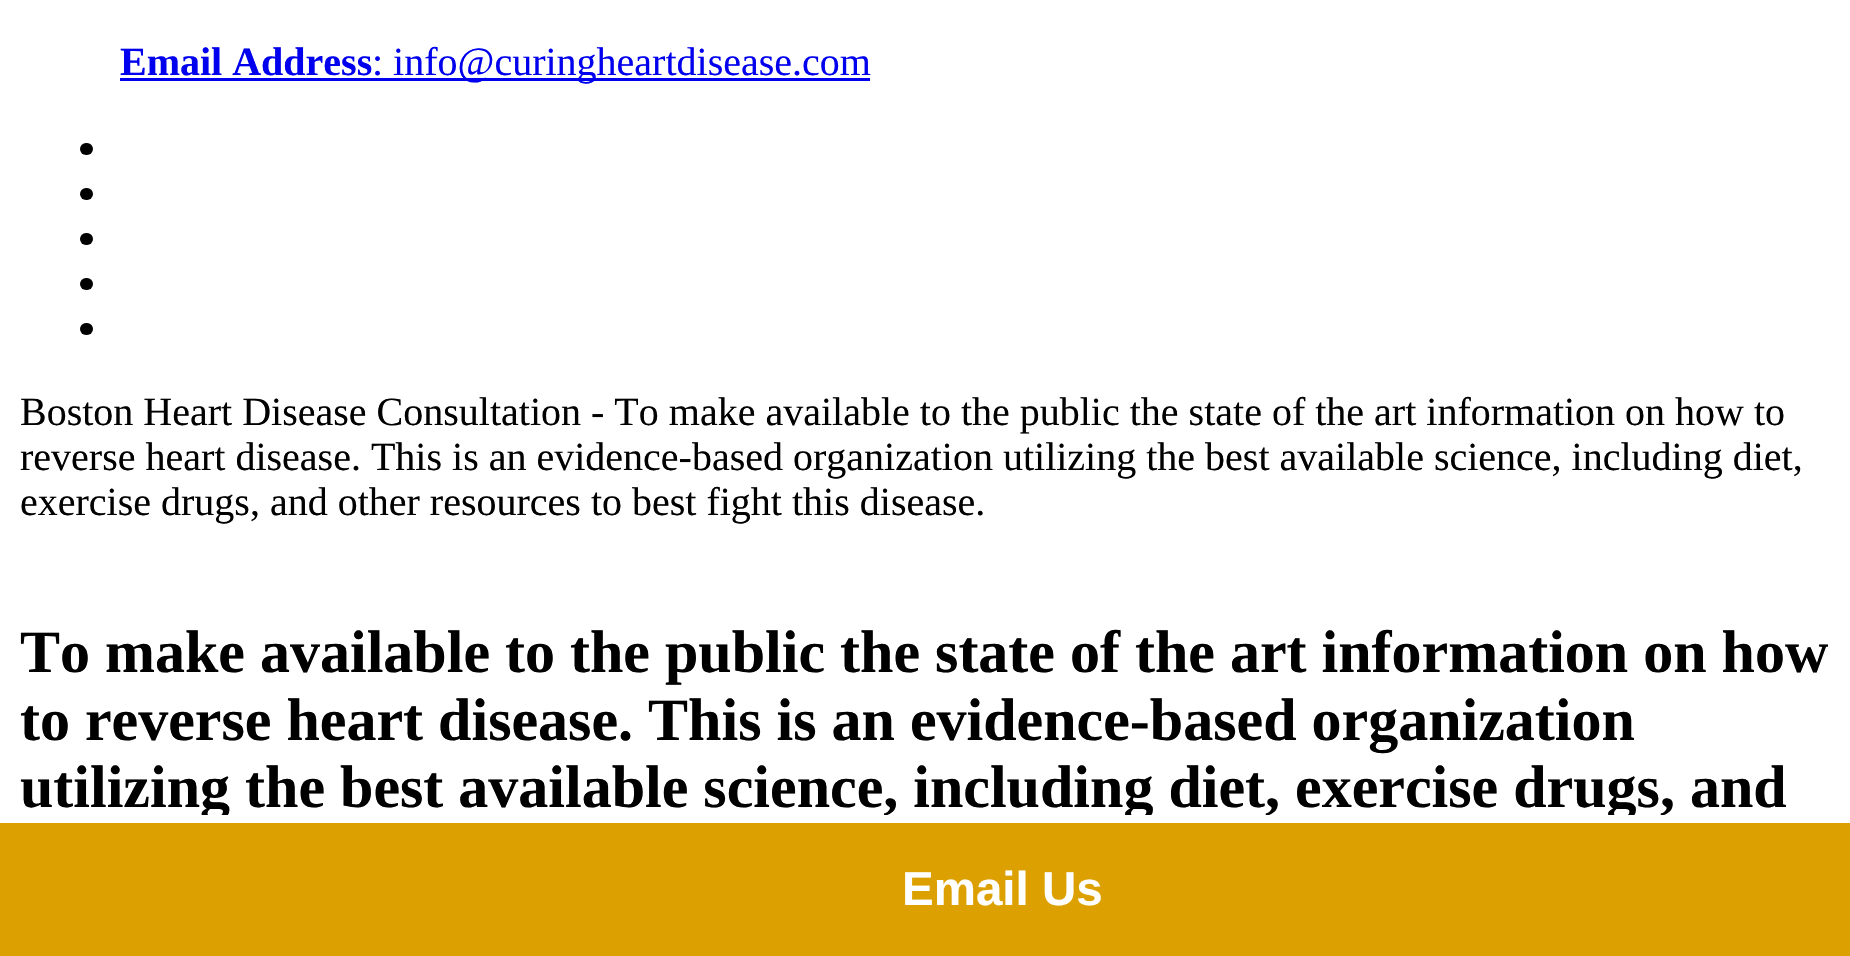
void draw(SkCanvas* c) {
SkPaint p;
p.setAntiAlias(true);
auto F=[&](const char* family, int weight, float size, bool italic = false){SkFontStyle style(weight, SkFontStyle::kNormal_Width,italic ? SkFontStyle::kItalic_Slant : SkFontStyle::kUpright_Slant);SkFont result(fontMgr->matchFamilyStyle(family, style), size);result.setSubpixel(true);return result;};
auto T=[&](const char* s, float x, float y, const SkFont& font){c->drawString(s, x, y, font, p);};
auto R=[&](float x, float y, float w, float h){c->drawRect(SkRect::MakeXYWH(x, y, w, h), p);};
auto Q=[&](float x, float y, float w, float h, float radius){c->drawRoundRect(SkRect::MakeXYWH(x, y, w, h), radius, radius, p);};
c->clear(0xffffffff);
auto f1 = F("Liberation Serif",700,40);
p.setColor(0xff0000ee);
T("Email Address",120,75,f1);
R(120,78,750,3);
auto f2 = F("Liberation Serif",400,40);
T(": info@curingheartdisease.com",372,75,f2);
p.setColor(0xff000000);
Q(80,143,13,12,6);
Q(80,188,13,12,6);
Q(80,233,13,12,6);
Q(80,278,13,12,6);
Q(80,323,13,12,6);
T("Boston Heart Disease Consultation - To make available to the public the state of the art information on how to",20,425,f2);
T("reverse heart disease. This is an evidence-based organization utilizing the best available science, including diet,",20,470,f2);
T("exercise drugs, and other resources to best fight this disease.",20,515,f2);
auto f3 = F("Liberation Serif",700,60);
T("To make available to the public the state of the art information on how",20,672,f3);
T("to reverse heart disease. This is an evidence-based organization",20,740,f3);
T("utilizing the best available science, including diet, exercise drugs, and",20,807,f3);
p.setColor(0xffffffff);
R(201,815,1464,6);
p.setColor(0xffdca100);
R(0,823,1850,133);
auto f4 = F("Liberation Sans",700,47.5);
p.setColor(0xffffffff);
T("Email Us",902,905,f4);
}
